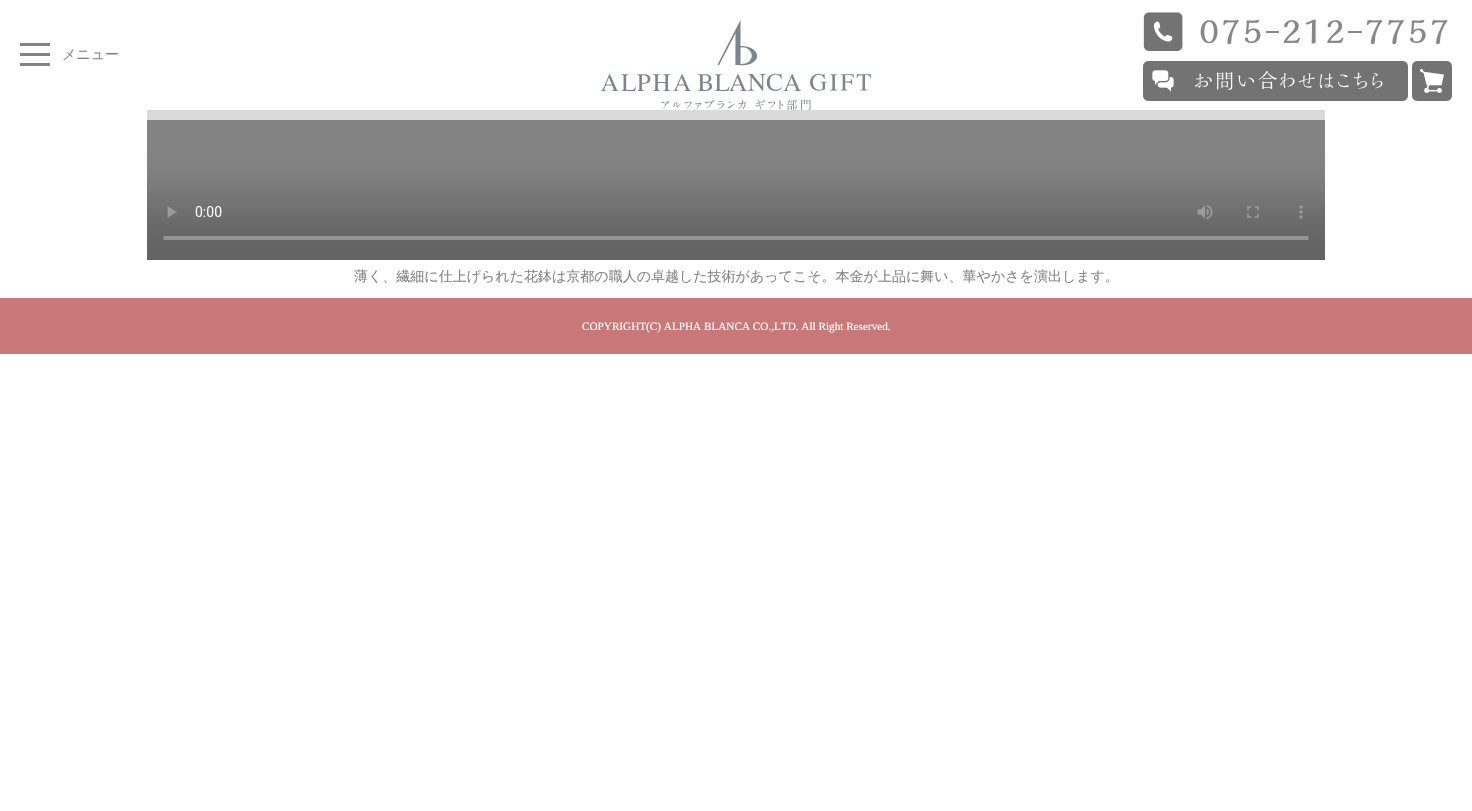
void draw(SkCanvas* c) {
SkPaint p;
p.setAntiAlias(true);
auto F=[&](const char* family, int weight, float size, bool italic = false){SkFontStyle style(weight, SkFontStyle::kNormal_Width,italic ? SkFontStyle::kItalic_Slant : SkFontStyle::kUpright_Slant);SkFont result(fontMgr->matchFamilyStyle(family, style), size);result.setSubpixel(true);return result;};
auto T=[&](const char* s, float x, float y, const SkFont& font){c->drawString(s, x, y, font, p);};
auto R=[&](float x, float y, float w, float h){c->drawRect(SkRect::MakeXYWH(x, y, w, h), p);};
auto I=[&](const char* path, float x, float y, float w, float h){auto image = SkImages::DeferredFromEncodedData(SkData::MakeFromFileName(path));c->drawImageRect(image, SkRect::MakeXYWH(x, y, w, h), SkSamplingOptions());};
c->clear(0xffffffff);
I("5.png",147,110,1178,150);
p.setColor(0xb3ffffff);
R(147,110,1178,10);
p.setColor(0xff838383);
R(20,53,30,3);
R(20,43,30,3);
R(20,63,30,3);
auto f1 = F("WenQuanYi Zen Hei",500,14);
T("メニュー",62,59,f1);
I("1.png",601,20,270,90);
I("2.png",1143,12,305,39);
I("3.png",1143,61,265,40);
I("4.png",1412,61,40,40);
T("薄く、繊細に仕上げられた花鉢は京都の職人の卓越した技術があってこそ。本金が上品に舞い、華やかさを演出します。",354,281,f1);
p.setColor(0xffc97879);
R(0,298,1472,56);
auto f2 = F("Liberation Serif",400,11.2);
p.setColor(0xffffffff);
T("COPYRIGHT(C) ALPHA BLANCA CO.,LTD. All Right Reserved.",582,330,f2);
}
